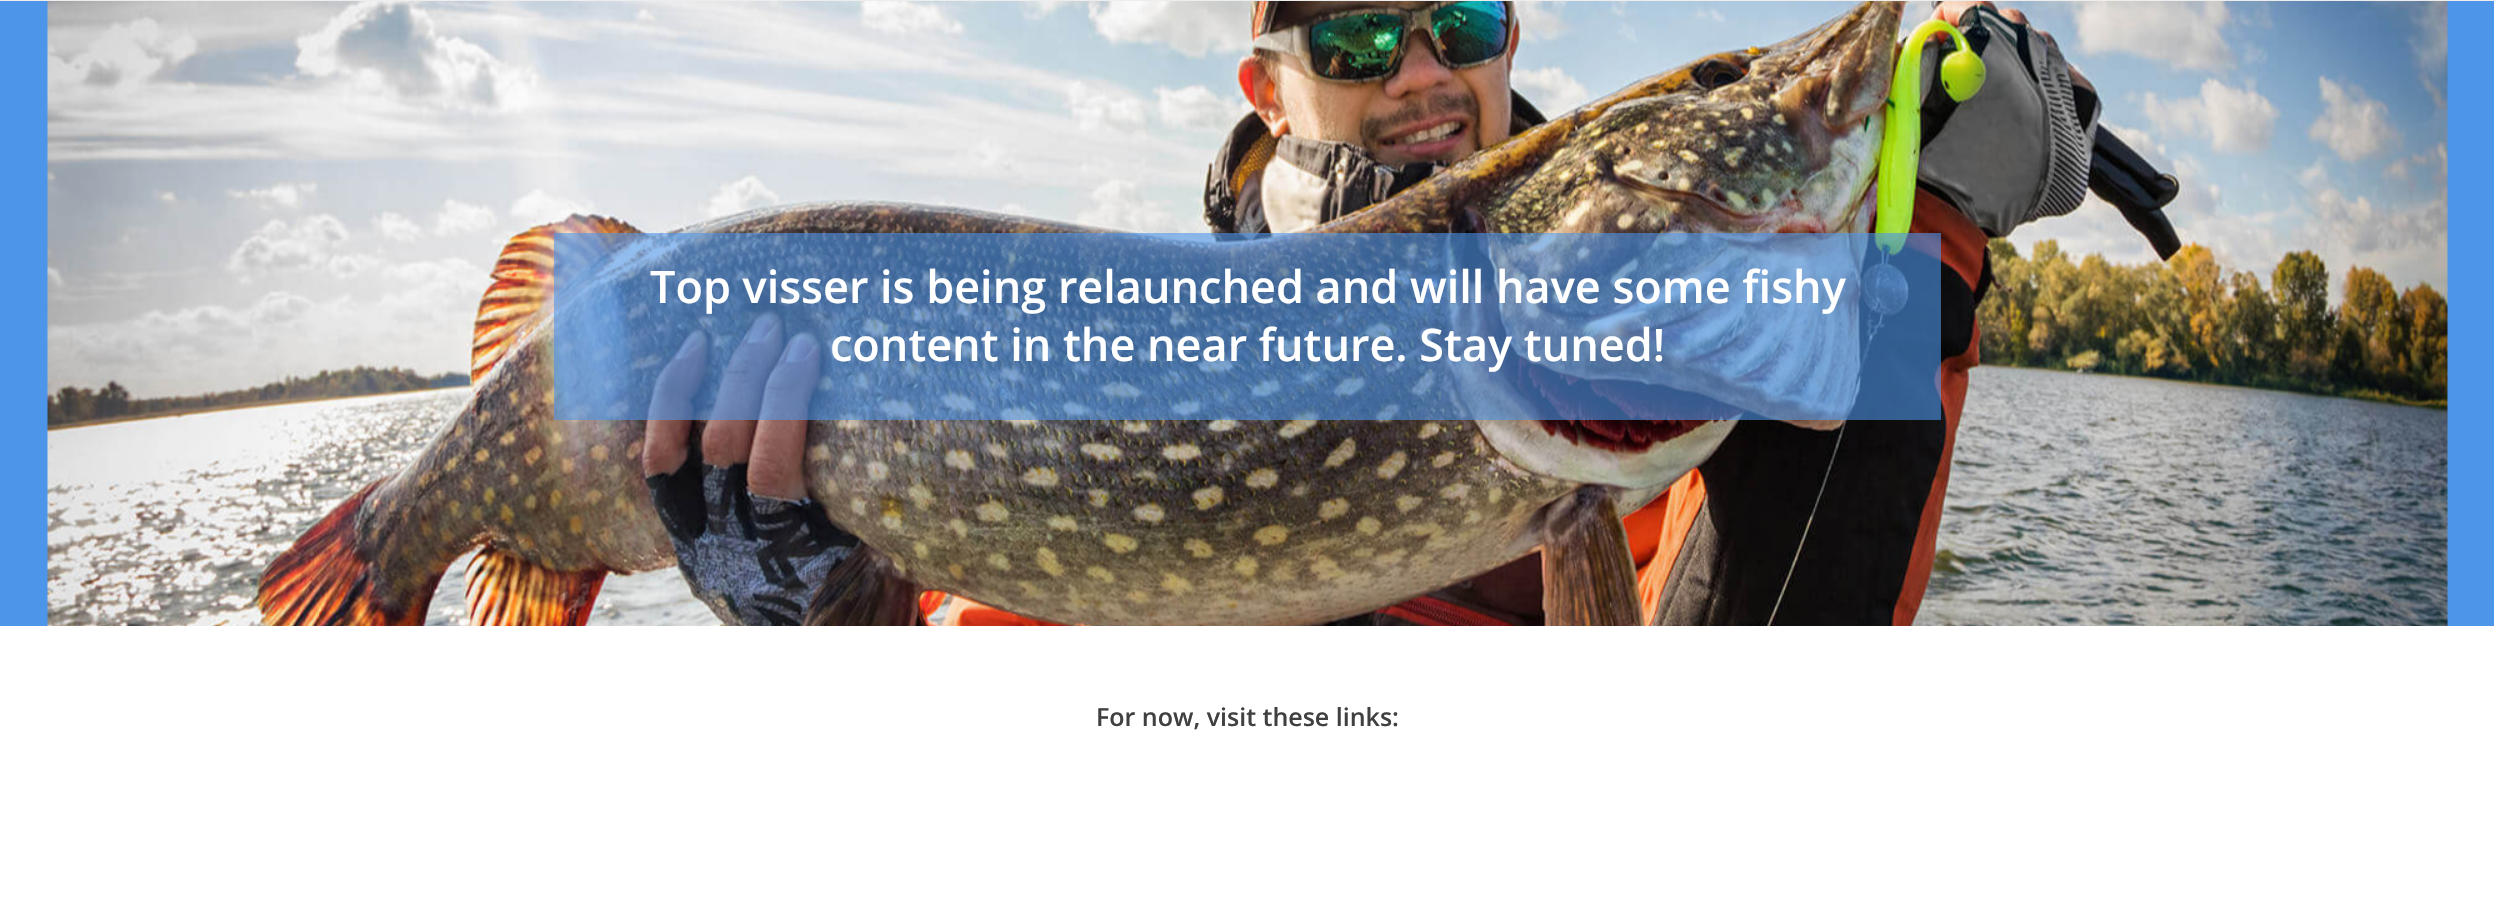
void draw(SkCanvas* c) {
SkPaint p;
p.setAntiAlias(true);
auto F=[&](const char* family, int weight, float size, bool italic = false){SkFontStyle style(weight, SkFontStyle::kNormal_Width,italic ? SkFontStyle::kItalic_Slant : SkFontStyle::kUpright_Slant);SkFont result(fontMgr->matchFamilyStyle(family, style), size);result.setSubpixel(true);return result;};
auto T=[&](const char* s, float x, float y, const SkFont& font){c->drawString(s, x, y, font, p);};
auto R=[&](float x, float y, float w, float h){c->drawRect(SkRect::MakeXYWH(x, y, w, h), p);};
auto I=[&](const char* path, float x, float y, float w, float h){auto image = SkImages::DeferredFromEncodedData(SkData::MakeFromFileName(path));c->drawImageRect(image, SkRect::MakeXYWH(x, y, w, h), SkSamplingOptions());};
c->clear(0xffffffff);
p.setColor(0xffededed);
R(0,0,2494,1);
p.setColor(0xff4c95e8);
R(0,1,2494,625);
I("1.png",47,1,2401,625);
p.setColor(0x994c95e8);
R(554,233,1387,187);
auto f1 = F("Open Sans",600,45);
p.setColor(0xffffffff);
T("Top visser is being relaunched and will have some fishy",650,303,f1);
T("content in the near future. Stay tuned!",830,361,f1);
auto f2 = F("Open Sans",600,25);
p.setColor(0xff404040);
T("For now, visit these links:",1096,726,f2);
}
